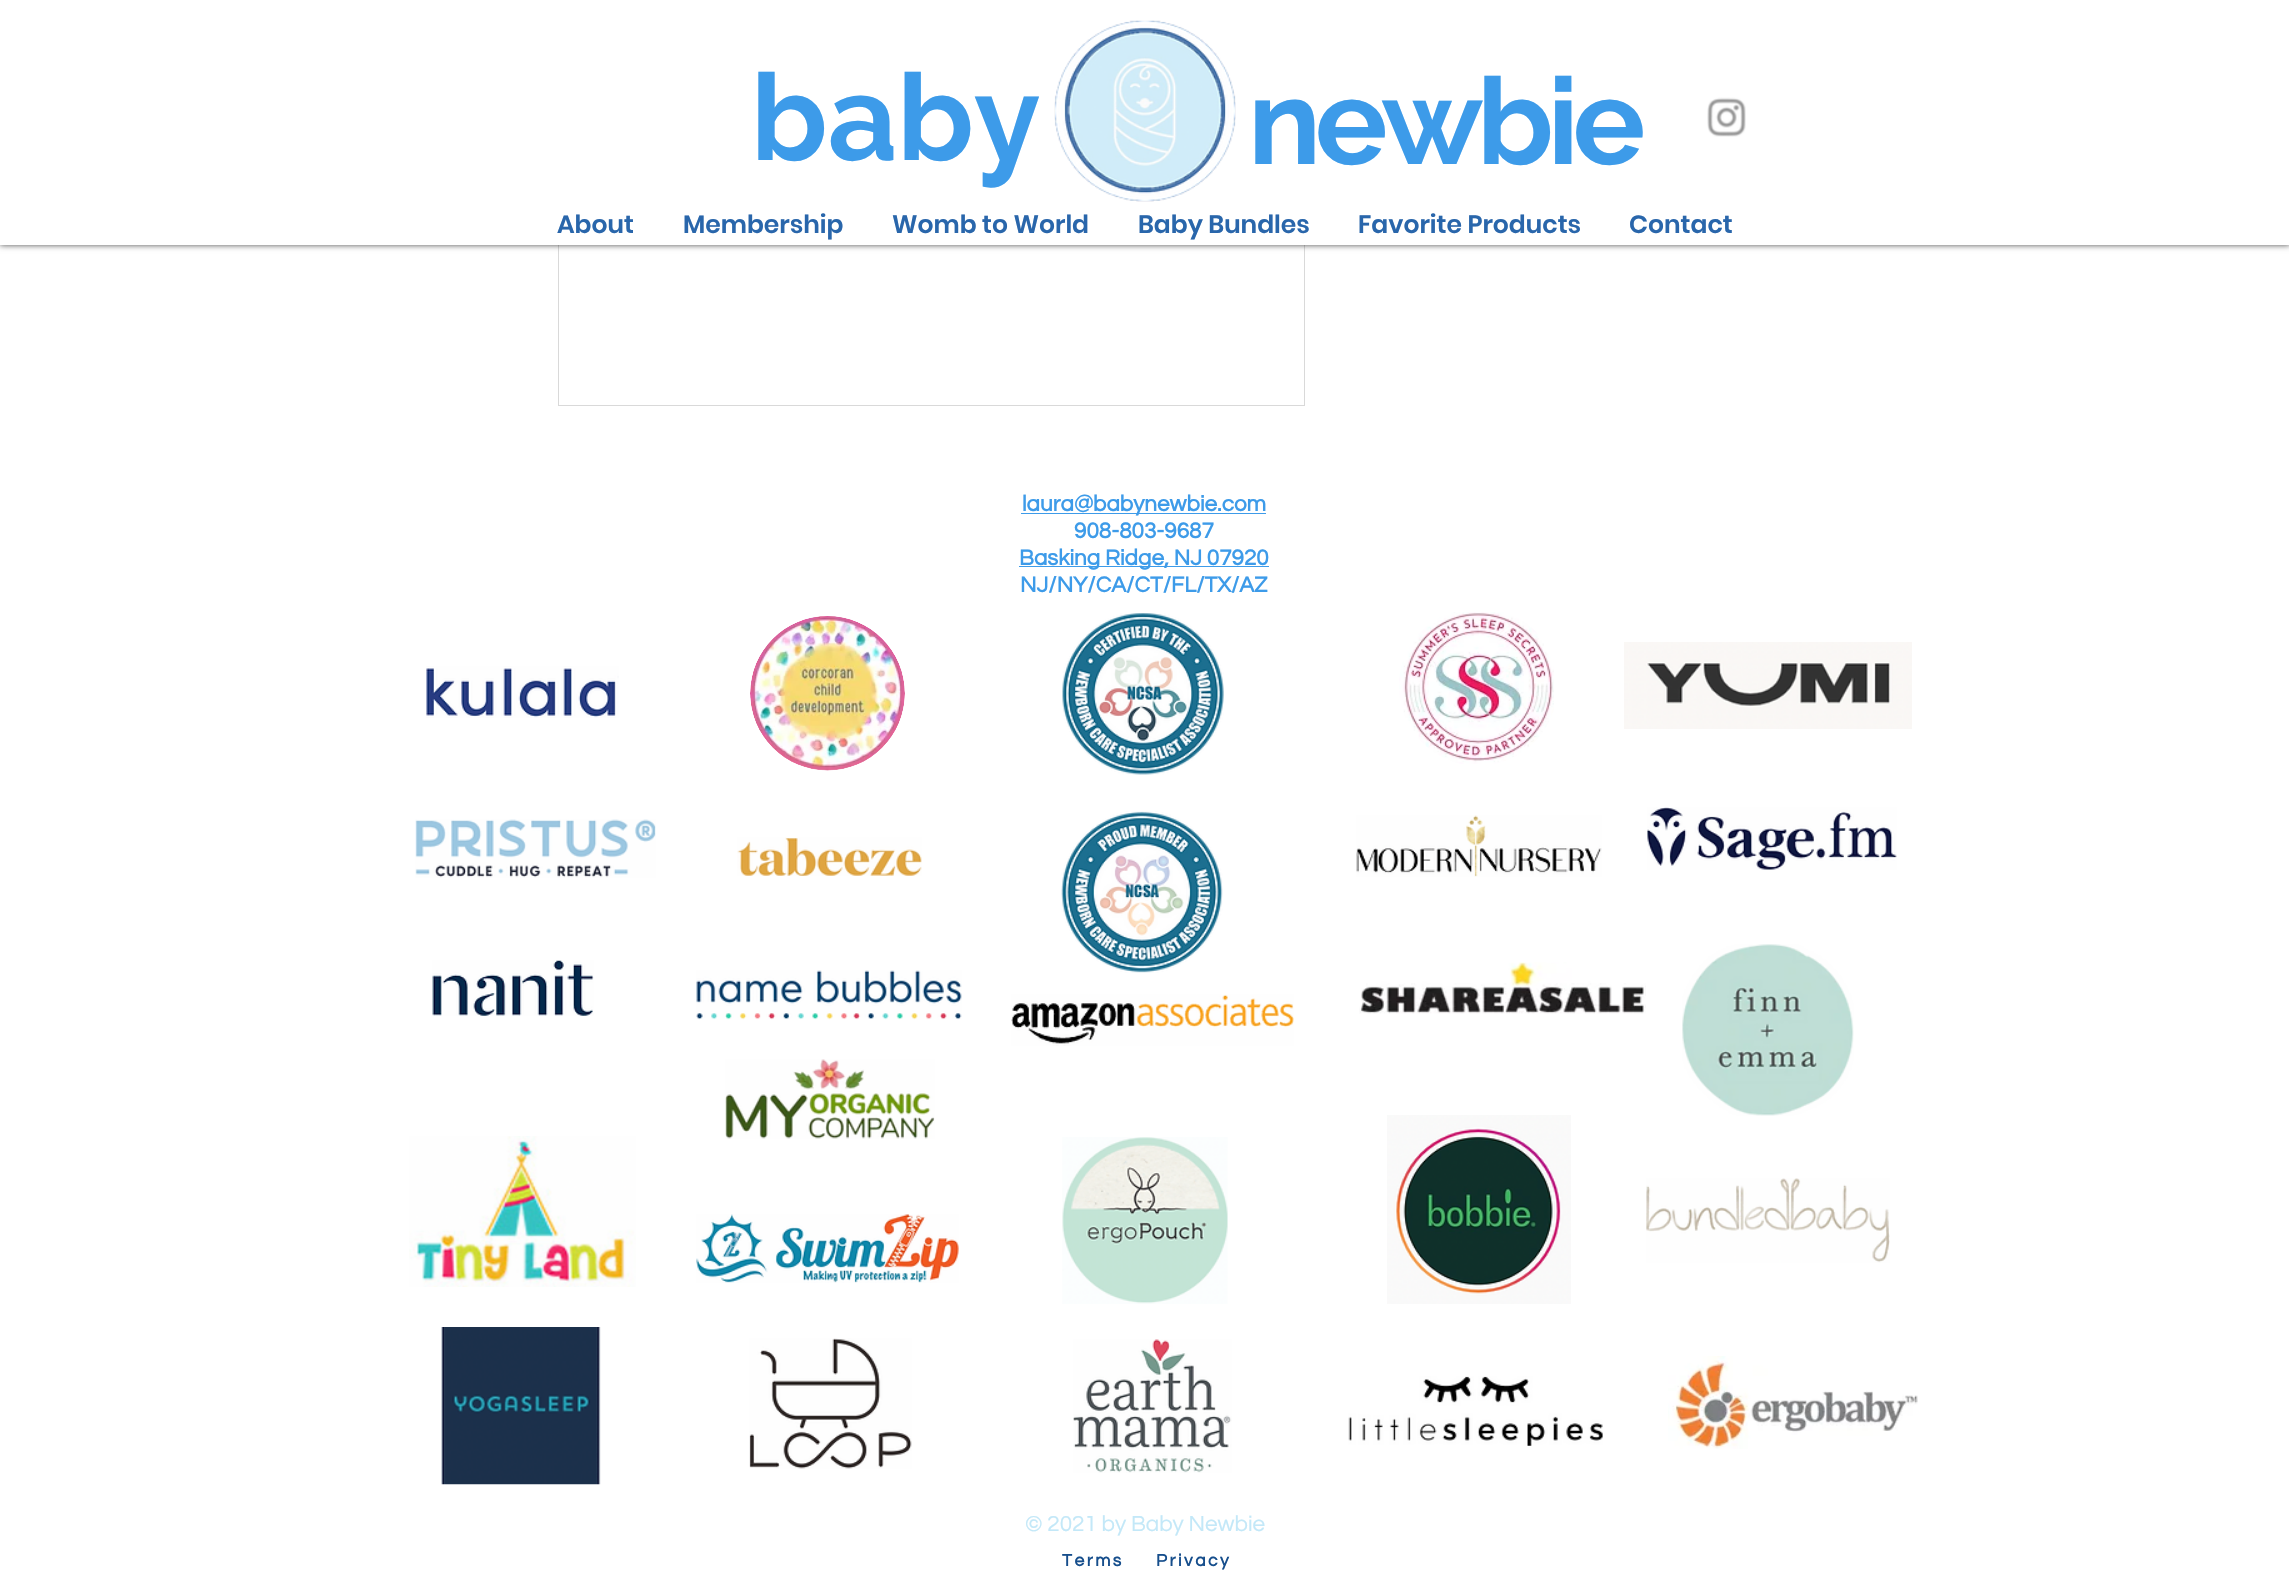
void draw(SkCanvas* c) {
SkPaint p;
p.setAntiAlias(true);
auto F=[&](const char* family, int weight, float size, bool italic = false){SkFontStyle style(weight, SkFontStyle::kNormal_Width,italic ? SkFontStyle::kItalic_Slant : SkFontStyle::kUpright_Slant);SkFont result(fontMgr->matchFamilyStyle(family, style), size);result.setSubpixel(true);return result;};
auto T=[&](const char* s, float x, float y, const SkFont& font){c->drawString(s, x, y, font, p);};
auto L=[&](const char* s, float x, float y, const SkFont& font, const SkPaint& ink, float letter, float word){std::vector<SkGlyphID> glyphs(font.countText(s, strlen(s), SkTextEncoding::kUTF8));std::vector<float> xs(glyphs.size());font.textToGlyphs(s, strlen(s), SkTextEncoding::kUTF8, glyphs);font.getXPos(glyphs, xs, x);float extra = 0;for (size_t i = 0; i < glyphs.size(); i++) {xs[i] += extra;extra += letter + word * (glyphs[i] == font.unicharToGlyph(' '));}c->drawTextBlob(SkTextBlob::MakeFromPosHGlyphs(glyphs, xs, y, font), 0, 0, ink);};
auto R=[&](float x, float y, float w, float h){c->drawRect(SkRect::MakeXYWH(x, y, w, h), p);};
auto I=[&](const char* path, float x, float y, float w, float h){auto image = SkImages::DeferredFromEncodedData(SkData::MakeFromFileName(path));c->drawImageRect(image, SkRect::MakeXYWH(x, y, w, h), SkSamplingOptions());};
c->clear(0xffffffff);
p.setStroke(true);
p.setStrokeWidth(1);
p.setColor(0xffd9d9d9);
c->drawRect(SkRect::MakeXYWH(558.5,-.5,746,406),p);
p.setStroke(false);
p.setColor(0xb3000000);
p.setMaskFilter(SkMaskFilter::MakeBlur(kNormal_SkBlurStyle, 3));
c->drawRect(SkRect::MakeXYWH(0,0,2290,245),p);
p.setMaskFilter(nullptr);
p.setColor(0xffffffff);
R(0,0,2289,245);
auto f1 = F("Raleway",700,121);
p.setColor(0xff3d9be9);
T("baby",751,160,f1);
I("1.png",1054,20,182,182);
L("newbie",1248,164,f1,p,-6,0);
I("2.png",1707,97,39,40);
auto f2 = F("Poppins",600,25);
p.setColor(0xff2966ab);
T("About",557,233,f2);
T("Membership",683,233,f2);
T("Womb to World",892,233,f2);
T("Baby Bundles",1138,233,f2);
T("Favorite Products",1358,233,f2);
T("Contact",1629,233,f2);
p.setColor(0xff3d9be9);
R(1021,513,245,1);
auto f3 = F("Questrial",700,22.5);
T("laura@babynewbie.com",1022,511,f3);
T("908-803-9687",1074,538,f3);
R(1019,566,250,1);
T("Basking Ridge, NJ 07920",1019,565,f3);
T("NJ/NY/CA/CT/FL/TX/AZ",1020,592,f3);
I("3.png",426,666,193,52);
I("4.png",750,616,155,155);
I("5.png",1062,613,162,162);
I("6.png",1399,612,155,152);
I("7.png",1624,642,288,87);
I("8.png",415,819,241,59);
I("9.png",737,837,185,39);
I("10.png",1061,811,162,162);
I("11.png",1356,815,246,62);
I("12.png",1647,807,250,63);
I("13.png",432,960,162,56);
I("14.png",696,970,266,50);
I("15.png",1011,994,283,52);
I("16.png",1359,962,287,52);
I("17.png",1682,944,172,172);
I("18.png",725,1059,210,80);
I("19.png",409,1136,227,151);
I("20.png",696,1214,263,69);
I("21.png",1062,1137,166,167);
I("22.png",1387,1115,184,189);
I("23.png",1646,1178,244,85);
I("24.png",441,1327,160,158);
I("25.png",749,1338,163,131);
I("26.png",1073,1339,159,134);
I("27.png",1348,1376,255,70);
I("28.png",1668,1356,250,93);
auto f4 = F("Questrial",400,22.5);
p.setColor(0xffc3e8f8);
T("© 2021 by Baby Newbie",1025,1531,f4);
auto f5 = F("Questrial",700,17.5);
p.setColor(0xff164e8c);
L("Terms",1062,1566,f5,p,2.5,0);
L("Privacy",1156,1566,f5,p,2.5,0);
}
